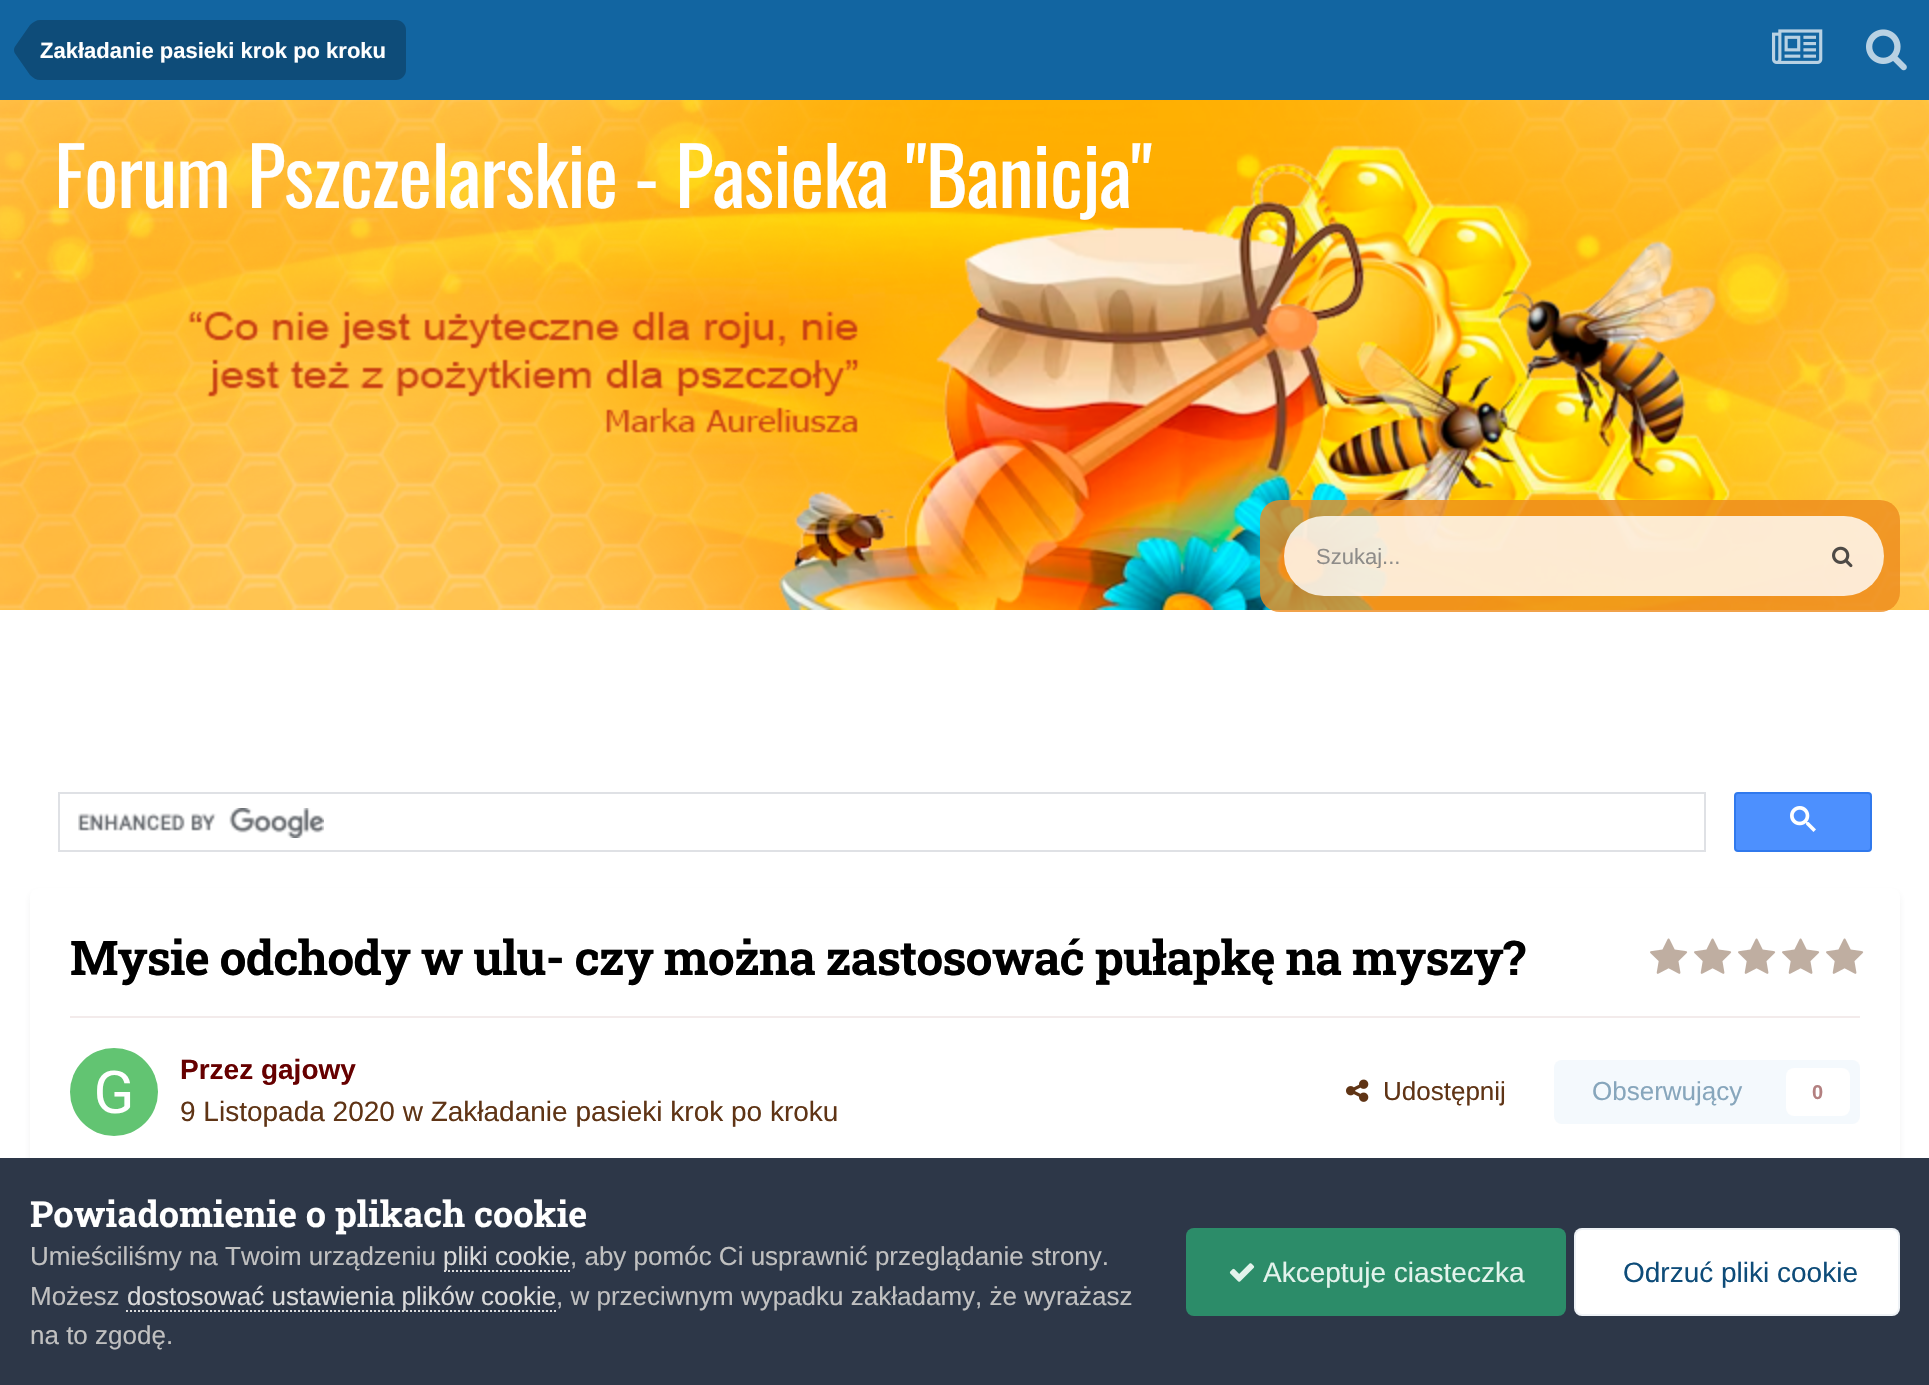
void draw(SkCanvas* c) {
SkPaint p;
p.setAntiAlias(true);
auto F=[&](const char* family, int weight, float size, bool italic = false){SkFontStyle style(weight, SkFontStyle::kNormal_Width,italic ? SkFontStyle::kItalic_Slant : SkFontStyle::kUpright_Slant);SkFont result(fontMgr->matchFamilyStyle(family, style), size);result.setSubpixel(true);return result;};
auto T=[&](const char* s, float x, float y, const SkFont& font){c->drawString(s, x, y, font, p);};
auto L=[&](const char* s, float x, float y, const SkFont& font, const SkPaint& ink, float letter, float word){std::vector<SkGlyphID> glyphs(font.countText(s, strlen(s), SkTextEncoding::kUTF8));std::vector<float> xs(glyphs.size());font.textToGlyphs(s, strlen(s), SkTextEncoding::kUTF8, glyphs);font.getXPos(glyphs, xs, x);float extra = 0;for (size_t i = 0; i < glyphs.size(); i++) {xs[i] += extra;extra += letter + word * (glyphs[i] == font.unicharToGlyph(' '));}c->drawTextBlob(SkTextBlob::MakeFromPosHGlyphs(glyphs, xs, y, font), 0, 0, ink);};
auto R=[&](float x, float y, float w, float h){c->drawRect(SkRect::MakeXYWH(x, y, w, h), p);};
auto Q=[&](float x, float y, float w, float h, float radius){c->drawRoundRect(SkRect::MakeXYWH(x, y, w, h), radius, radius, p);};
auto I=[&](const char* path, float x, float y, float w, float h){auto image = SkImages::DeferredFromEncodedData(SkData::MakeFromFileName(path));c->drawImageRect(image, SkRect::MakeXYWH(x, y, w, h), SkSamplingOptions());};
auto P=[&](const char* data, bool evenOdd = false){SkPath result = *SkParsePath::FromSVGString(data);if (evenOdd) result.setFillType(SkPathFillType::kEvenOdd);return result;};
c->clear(0xffffffff);
I("1.png",0,100,1929,510);
p.setColor(0xff1265a1);
R(0,0,1929,100);
p.setColor(0xff0e4c79);
c->drawPath(P("M40 20h356c5.5 0 10 4.5 10 10v40c0 5.5-4.5 10-10 10h-356z"),p);
c->drawPath(P("M40 50v30c-3.5 0-7-2-10-5l-15-21.5c-.5-1-1-2-1-3.5zm0 0h-26c0-1.5 .5-2.5 1-3.5l15-21.5c3-3 6.5-5 10-5z"),p);
auto f1 = F("Liberation Sans",700,22);
p.setColor(0xffffffff);
T("Zakładanie pasieki krok po kroku",40,58,f1);
I("2.png",1772,29,51,35);
I("3.png",1866,29,41,42);
I("4.png",0,100,1929,510);
auto f2 = F("Oswald",400,80);
L("Forum Pszczelarskie - Pasieka \"Banicja\"",54,208,f2,p,-1,0);
p.setColor(0xccee8b1d);
Q(1260,500,640,112,20);
p.setColor(0xccffffff);
Q(1284,516,600,80,40);
c->save();
c->clipRect(SkRect::MakeXYWH(1316,544,258,24));
auto f3 = F("Liberation Sans",400,22);
p.setColor(0xff8e8c89);
T("Szukaj...",1316,564,f3);
c->restore();
I("5.png",1832,546,21,22);
p.setStroke(true);
p.setStrokeWidth(2);
p.setColor(0xffdfe1e5);
c->drawRect(SkRect::MakeXYWH(59,793,1646,58),p);
I("6.png",78,808,246,30);
p.setStroke(false);
p.setColor(0xff4d90fe);
c->drawRoundRect(SkRect::MakeXYWH(1735,793,136,58),3,3,p);
p.setStroke(true);
p.setColor(0xff3079ed);
c->drawRoundRect(SkRect::MakeXYWH(1735,793,136,58),3,3,p);
I("7.png",1790,806,26,26);
p.setStroke(false);
p.setColor(0x1a2d3748);
p.setMaskFilter(SkMaskFilter::MakeBlur(kNormal_SkBlurStyle, 4));
c->drawRoundRect(SkRect::MakeXYWH(32,894,1866,284),6,6,p);
p.setMaskFilter(nullptr);
p.setColor(0xffffffff);
Q(30,888,1870,288,8);
auto f4 = F("Roboto Slab",700,48);
p.setColor(0xff000000);
L("Mysie odchody w ulu- czy można zastosować pułapkę na myszy?",70,975,f4,p,-.95,0);
I("8.png",1650,938,38,36);
I("8.png",1694,938,38,36);
I("8.png",1738,938,38,36);
I("8.png",1782,938,38,36);
I("8.png",1826,938,38,36);
p.setColor(0xfff3ebeb);
R(70,1016,1790,2);
I("9.png",70,1048,88,88);
auto f5 = F("Liberation Sans",700,28);
p.setColor(0xff660000);
T("Przez gajowy",180,1079,f5);
auto f6 = F("Liberation Sans",400,28);
p.setColor(0xff5f3415);
T("9 Listopada 2020 w Zakładanie pasieki krok po kroku",180,1121,f6);
I("10.png",1346,1079,23,23);
auto f7 = F("Liberation Sans",400,26);
T("Udostępnij",1383,1100,f7);
p.setColor(0xfff4f9fd);
Q(1554,1060,306,64,8);
p.setColor(0xff87a6bc);
T("Obserwujący",1592,1100,f7);
p.setColor(0xffffffff);
Q(1786,1068,64,48,8);
auto f8 = F("Liberation Sans",700,20);
p.setColor(0xffb38080);
T("0",1812,1099,f8);
p.setColor(0xff2d3748);
R(0,1158,1929,227);
auto f9 = F("Roboto Slab",700,36);
p.setColor(0xffffffff);
T("Powiadomienie o plikach cookie",30,1227,f9);
p.setColor(0xffc0c0c0);
T("Umieściliśmy na Twoim urządzeniu",30,1265,f7);
p.setStroke(true);
p.setColor(0xffdadada);
p.setPathEffect(SkDashPathEffect::Make({{2,2}}, 0));
c->drawPath(P("M444 1271h126"),p);
p.setPathEffect(nullptr);
p.setStroke(false);
T("pliki cookie",443,1265,f7);
p.setColor(0xffc0c0c0);
T(", aby pomóc Ci usprawnić przeglądanie strony.",570,1265,f7);
T("Możesz",30,1305,f7);
p.setStroke(true);
p.setColor(0xffdadada);
p.setPathEffect(SkDashPathEffect::Make({{2,2}}, 0));
c->drawPath(P("M126 1311h430"),p);
p.setPathEffect(nullptr);
p.setStroke(false);
T("dostosować ustawienia plików cookie",127,1305,f7);
p.setColor(0xffc0c0c0);
T(", w przeciwnym wypadku zakładamy, że wyrażasz",556,1305,f7);
T("na to zgodę.",30,1344,f7);
p.setColor(0xff2c8c69);
Q(1186,1228,380,88,8);
I("11.png",1229,1263,26,19);
p.setColor(0xffe3f3ec);
T("Akceptuje ciasteczka",1263,1282,f6);
p.setColor(0xffffffff);
Q(1574,1228,326,88,8);
p.setStroke(true);
p.setColor(0x120e4c79);
c->drawRoundRect(SkRect::MakeXYWH(1575,1229,324,86),7,7,p);
p.setStroke(false);
p.setColor(0xff0e4c79);
T("Odrzuć pliki cookie",1623,1282,f6);
}
